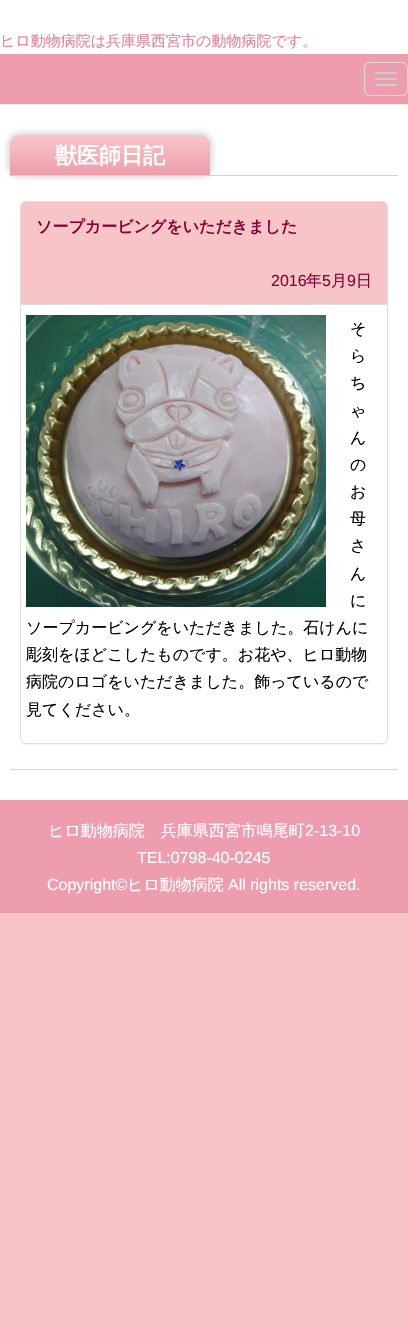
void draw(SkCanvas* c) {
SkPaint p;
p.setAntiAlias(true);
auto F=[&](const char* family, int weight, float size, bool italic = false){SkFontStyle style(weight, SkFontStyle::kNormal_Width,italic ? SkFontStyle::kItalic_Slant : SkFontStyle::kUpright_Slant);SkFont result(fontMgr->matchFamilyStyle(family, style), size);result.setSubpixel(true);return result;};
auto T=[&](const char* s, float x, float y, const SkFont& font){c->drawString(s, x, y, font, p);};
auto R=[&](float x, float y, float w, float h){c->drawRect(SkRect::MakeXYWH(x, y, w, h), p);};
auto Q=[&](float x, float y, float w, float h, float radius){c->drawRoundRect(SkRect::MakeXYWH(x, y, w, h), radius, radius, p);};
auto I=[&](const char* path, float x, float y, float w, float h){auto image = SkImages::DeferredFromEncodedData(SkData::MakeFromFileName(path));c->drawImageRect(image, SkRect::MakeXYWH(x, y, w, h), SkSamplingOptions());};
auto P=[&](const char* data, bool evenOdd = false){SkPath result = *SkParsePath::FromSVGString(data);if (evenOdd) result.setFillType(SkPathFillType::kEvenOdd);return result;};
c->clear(0xfff7c5c8);
p.setColor(0xffffffff);
R(0,0,408,54);
auto f1 = F("WenQuanYi Zen Hei",500,15);
p.setColor(0xffe88196);
T("ヒロ動物病院は兵庫県西宮市の動物病院です。",0,46,f1);
p.setColor(0xffed9dae);
R(0,54,408,50);
p.setColor(0xffeeeeee);
R(0,104,408,1);
p.setStroke(true);
p.setStrokeWidth(1);
p.setColor(0xffdddddd);
c->drawRoundRect(SkRect::MakeXYWH(364.5,62.5,43,33),5.5,5.5,p);
p.setStroke(false);
p.setColor(0xffcccccc);
Q(375,72,22,2,1);
Q(375,78,22,2,1);
Q(375,84,22,2,1);
p.setColor(0xffffffff);
R(0,105,408,695);
p.setColor(0x2b000000);
p.setMaskFilter(SkMaskFilter::MakeBlur(kNormal_SkBlurStyle, 3));
c->drawRoundRect(SkRect::MakeXYWH(8,133,204,44),12,12,p);
p.setMaskFilter(nullptr);
{
const SkColor colors[] = {0xfff7c5c8,0xffed9dad};
const float stops[] = {0,1};
const SkPoint ends[] = {{110,135}, {110,175}};
p.setShader(SkGradientShader::MakeLinear(ends, colors, stops, 2, SkTileMode::kClamp));
p.setAlpha(255);
}
c->drawPath(P("M20 135h180c5.5 0 10 4.5 10 10v30h-200v-30c0-5.5 4.5-10 10-10z"),p);
auto f2 = F("WenQuanYi Zen Hei",700,22);
p.setShader(nullptr);
p.setColor(0xffffffff);
T("獣医師日記",55,163,f2);
p.setColor(0xffd2d2d2);
R(10,175,388,1);
R(10,769,388,1);
p.setColor(0x0d000000);
p.setMaskFilter(SkMaskFilter::MakeBlur(kNormal_SkBlurStyle, .5));
c->drawRoundRect(SkRect::MakeXYWH(20,202,368,543),6,6,p);
p.setMaskFilter(nullptr);
p.setColor(0xffffffff);
c->drawRoundRect(SkRect::MakeXYWH(20.5,201.5,367,542),5.5,5.5,p);
p.setStroke(true);
p.setColor(0xffdddddd);
c->drawRoundRect(SkRect::MakeXYWH(20.5,201.5,367,542),5.5,5.5,p);
p.setStroke(false);
p.setColor(0xfff7c5c8);
c->drawPath(P("M26 202h356c3 0 5 2 5 5v98h-366v-98c0-3 2-5 5-5z"),p);
p.setColor(0xffdddddd);
R(21,304,366,1);
auto f3 = F("WenQuanYi Zen Hei",700,16);
p.setColor(0xff890037);
T("ソープカービングをいただきました",36,232,f3);
auto f4 = F("Liberation Sans",400,16);
T("2016",271,286,f4);
auto f5 = F("WenQuanYi Zen Hei",500,16);
T("年",306,286,f5);
T("5",322,286,f4);
T("月",331,286,f5);
T("9",347,286,f4);
T("日",356,286,f5);
I("1.png",26,315,300,292);
p.setColor(0xff000000);
T("そ",350,334,f5);
T("ら",350,361,f5);
T("ち",350,388,f5);
T("ゃ",350,416,f5);
T("ん",350,443,f5);
T("の",350,470,f5);
T("お",350,497,f5);
T("母",350,524,f5);
T("さ",350,551,f5);
T("ん",350,579,f5);
T("に",350,606,f5);
T("ソープカービングをいただきました。石けんに",26,633,f5);
T("彫刻をほどこしたものです。お花や、ヒロ動物",26,660,f5);
T("病院のロゴをいただきました。飾っているので",26,687,f5);
T("見てください。",26,715,f5);
p.setColor(0xffed9dad);
R(0,800,408,113);
p.setColor(0xffffffff);
T("ヒロ動物病院　兵庫県西宮市鳴尾町",48,836,f5);
T("2-13-10",305,836,f4);
T("TEL:0798-40-0245",137,863,f4);
T("Copyright©",47,890,f4);
T("ヒロ動物病院",127,890,f5);
T("All rights reserved.",228,890,f4);
}
